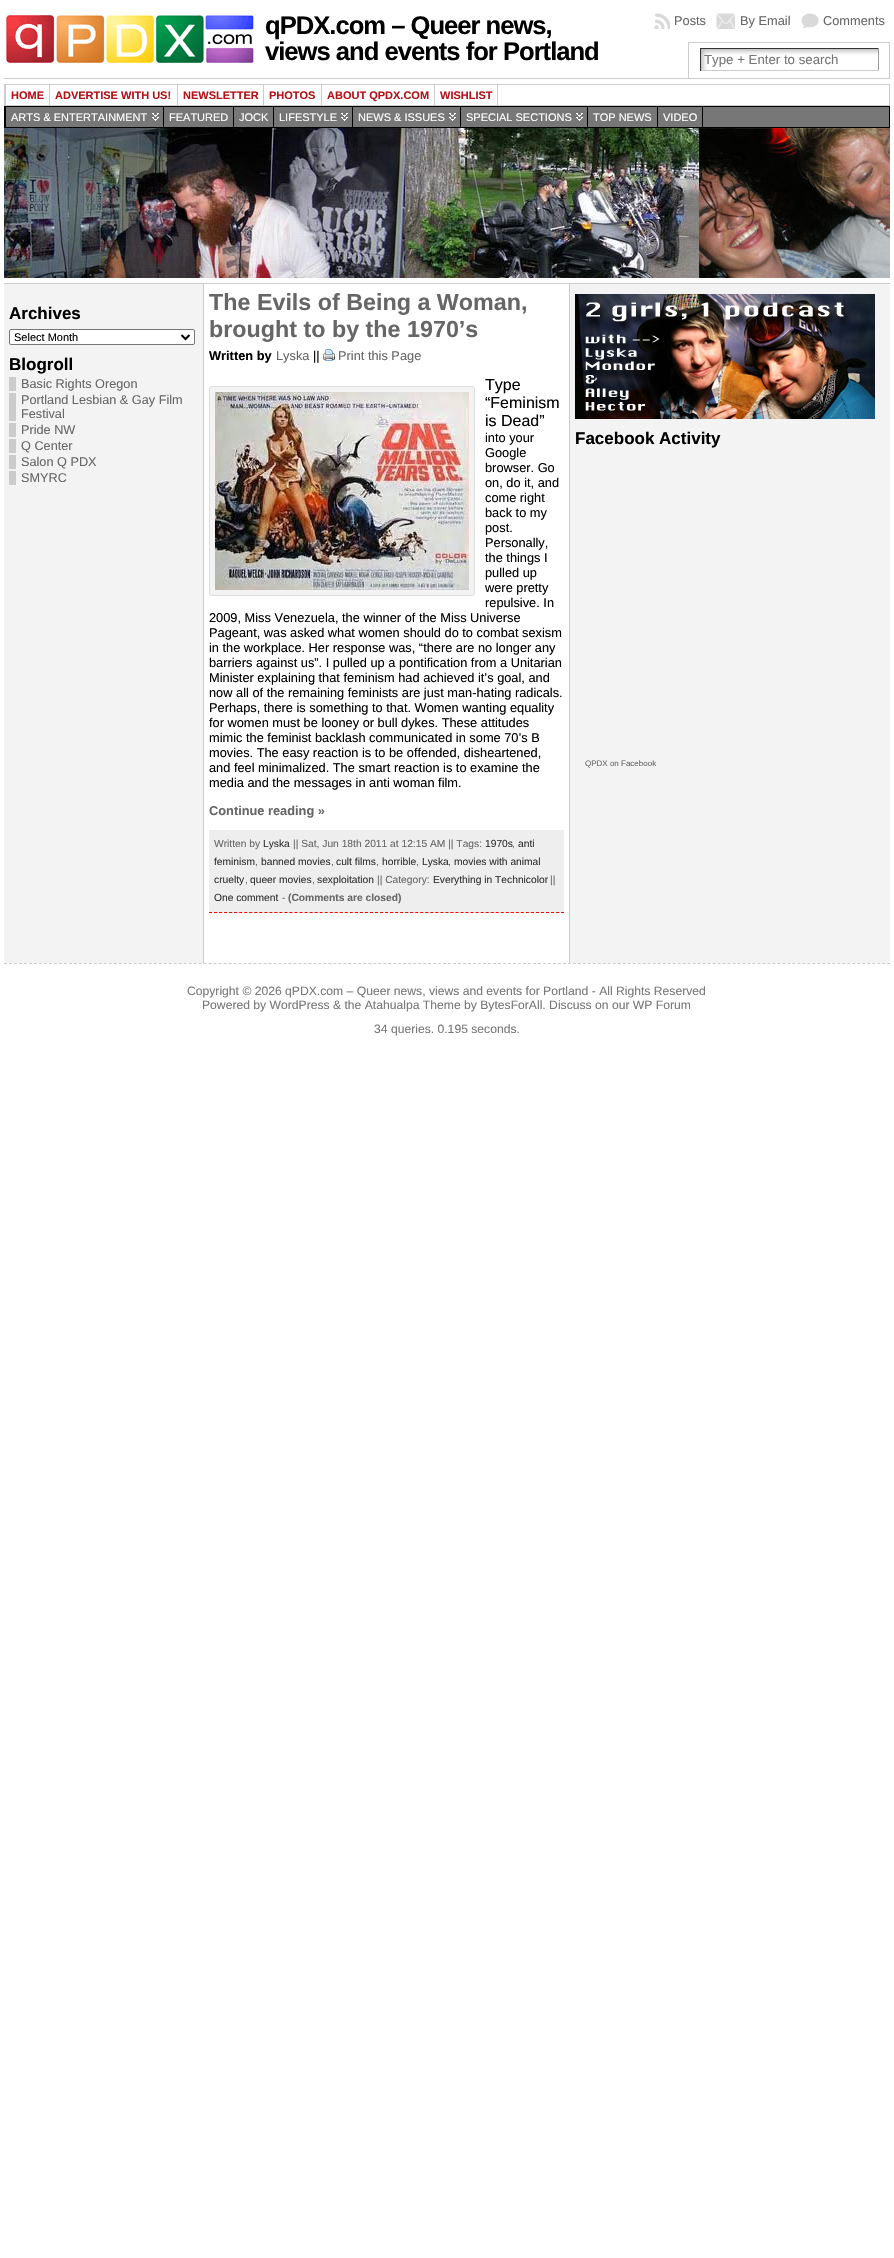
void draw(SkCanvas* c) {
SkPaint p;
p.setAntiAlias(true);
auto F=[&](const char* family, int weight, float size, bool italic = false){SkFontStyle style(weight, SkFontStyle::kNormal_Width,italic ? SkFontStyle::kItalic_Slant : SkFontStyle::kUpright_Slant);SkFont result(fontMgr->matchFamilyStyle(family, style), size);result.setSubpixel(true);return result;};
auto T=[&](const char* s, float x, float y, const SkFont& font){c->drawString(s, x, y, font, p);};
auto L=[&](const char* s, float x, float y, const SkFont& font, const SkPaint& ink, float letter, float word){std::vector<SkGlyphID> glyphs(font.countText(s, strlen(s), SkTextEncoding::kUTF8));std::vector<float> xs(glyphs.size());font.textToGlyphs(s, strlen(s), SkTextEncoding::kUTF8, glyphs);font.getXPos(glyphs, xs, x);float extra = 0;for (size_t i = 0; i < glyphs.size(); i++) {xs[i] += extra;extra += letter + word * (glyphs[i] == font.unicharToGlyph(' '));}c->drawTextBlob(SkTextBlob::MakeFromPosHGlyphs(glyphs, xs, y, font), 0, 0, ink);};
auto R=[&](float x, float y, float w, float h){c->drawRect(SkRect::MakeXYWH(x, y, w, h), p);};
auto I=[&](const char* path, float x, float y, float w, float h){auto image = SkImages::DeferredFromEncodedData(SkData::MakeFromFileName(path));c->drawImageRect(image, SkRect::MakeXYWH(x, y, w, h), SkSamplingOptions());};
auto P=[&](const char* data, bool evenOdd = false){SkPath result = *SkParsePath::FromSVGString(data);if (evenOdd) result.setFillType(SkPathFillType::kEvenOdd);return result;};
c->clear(0xffffffff);
I("1.png",6,15,248,48);
auto f1 = F("Liberation Sans",700,25.6);
p.setColor(0xff000000);
L("qPDX.com – Queer news,",265,34,f1,p,-1,0);
L("views and events for Portland",265,60,f1,p,-1,0);
I("2.png",654,13,16,16);
auto f2 = F("Liberation Sans",400,12.8);
p.setColor(0xff666666);
T("Posts",674,25,f2);
I("3.png",716,13,19,16);
T("By Email",740,25,f2);
I("4.png",801,13,18,16);
T("Comments",823,25,f2);
p.setColor(0xffcccccc);
R(688,42,202,1);
R(889,42,1,36);
R(688,42,1,36);
I("5.png",701,49,177,21);
p.setColor(0xff333333);
R(700,48,179,1);
p.setColor(0xff999999);
R(878,48,1,23);
p.setColor(0xffcccccc);
R(700,70,179,1);
p.setColor(0xff333333);
R(700,48,1,23);
auto f3 = F("Liberation Sans",400,13.25);
p.setColor(0xff777777);
T("Type + Enter to search",704,64,f3);
p.setColor(0xffcccccc);
R(4,78,886,1);
p.setStroke(true);
p.setStrokeWidth(1);
c->drawRect(SkRect::MakeXYWH(4.5,84.5,885,21),p);
c->drawRect(SkRect::MakeXYWH(5.5,84.5,44,21),p);
auto f4 = F("Liberation Sans",700,11);
p.setStroke(false);
p.setColor(0xffb31217);
T("HOME",11,99,f4);
p.setStroke(true);
p.setColor(0xffcccccc);
c->drawRect(SkRect::MakeXYWH(49.5,84.5,128,21),p);
p.setStroke(false);
p.setColor(0xffb31217);
T("ADVERTISE WITH US!",55,99,f4);
p.setStroke(true);
p.setColor(0xffcccccc);
c->drawRect(SkRect::MakeXYWH(177.5,84.5,86,21),p);
p.setStroke(false);
p.setColor(0xffb31217);
T("NEWSLETTER",183,99,f4);
p.setStroke(true);
p.setColor(0xffcccccc);
c->drawRect(SkRect::MakeXYWH(263.5,84.5,58,21),p);
p.setStroke(false);
p.setColor(0xffb31217);
T("PHOTOS",269,99,f4);
p.setStroke(true);
p.setColor(0xffcccccc);
c->drawRect(SkRect::MakeXYWH(321.5,84.5,113,21),p);
p.setStroke(false);
p.setColor(0xffb31217);
T("ABOUT QPDX.COM",327,99,f4);
p.setStroke(true);
p.setColor(0xffcccccc);
c->drawRect(SkRect::MakeXYWH(434.5,84.5,63,21),p);
p.setStroke(false);
p.setColor(0xffb31217);
T("WISHLIST",440,99,f4);
p.setColor(0xff777777);
R(703,107,186,20);
p.setStroke(true);
p.setColor(0xff000000);
c->drawRect(SkRect::MakeXYWH(4.5,106.5,885,21),p);
p.setStroke(false);
p.setColor(0xff777777);
R(6,107,157,20);
I("6.png",152,113,7,8);
p.setStroke(true);
p.setColor(0xff000000);
c->drawRect(SkRect::MakeXYWH(5.5,106.5,158,21),p);
auto f5 = F("Liberation Sans",400,11);
p.setStroke(false);
p.setColor(0xffffffff);
T("ARTS & ENTERTAINMENT",11,121,f5);
p.setColor(0xff777777);
c->drawRect(SkRect::MakeXYWH(163.5,106.5,70,21),p);
p.setStroke(true);
p.setColor(0xff000000);
c->drawRect(SkRect::MakeXYWH(163.5,106.5,70,21),p);
p.setStroke(false);
p.setColor(0xffffffff);
T("FEATURED",169,121,f5);
p.setColor(0xff777777);
c->drawRect(SkRect::MakeXYWH(233.5,106.5,40,21),p);
p.setStroke(true);
p.setColor(0xff000000);
c->drawRect(SkRect::MakeXYWH(233.5,106.5,40,21),p);
p.setStroke(false);
p.setColor(0xffffffff);
T("JOCK",239,121,f5);
p.setColor(0xff777777);
R(274,107,78,20);
I("6.png",341,113,7,8);
p.setStroke(true);
p.setColor(0xff000000);
c->drawRect(SkRect::MakeXYWH(273.5,106.5,79,21),p);
p.setStroke(false);
p.setColor(0xffffffff);
T("LIFESTYLE",279,121,f5);
p.setColor(0xff777777);
R(353,107,107,20);
I("6.png",449,113,7,8);
p.setStroke(true);
p.setColor(0xff000000);
c->drawRect(SkRect::MakeXYWH(352.5,106.5,108,21),p);
p.setStroke(false);
p.setColor(0xffffffff);
T("NEWS & ISSUES",358,121,f5);
p.setColor(0xff777777);
R(461,107,126,20);
I("6.png",576,113,7,8);
p.setStroke(true);
p.setColor(0xff000000);
c->drawRect(SkRect::MakeXYWH(460.5,106.5,127,21),p);
p.setStroke(false);
p.setColor(0xffffffff);
T("SPECIAL SECTIONS",466,121,f5);
p.setColor(0xff777777);
c->drawRect(SkRect::MakeXYWH(587.5,106.5,70,21),p);
p.setStroke(true);
p.setColor(0xff000000);
c->drawRect(SkRect::MakeXYWH(587.5,106.5,70,21),p);
p.setStroke(false);
p.setColor(0xffffffff);
T("TOP NEWS",593,121,f5);
p.setColor(0xff777777);
c->drawRect(SkRect::MakeXYWH(657.5,106.5,45,21),p);
p.setStroke(true);
p.setColor(0xff000000);
c->drawRect(SkRect::MakeXYWH(657.5,106.5,45,21),p);
p.setStroke(false);
p.setColor(0xffffffff);
T("VIDEO",663,121,f5);
I("7.png",4,128,886,150);
p.setColor(0xffcccccc);
R(4,283,886,1);
p.setColor(0xfff3f3f3);
R(4,284,199,679);
p.setColor(0xffcccccc);
R(203,284,1,679);
auto f6 = F("Liberation Sans",700,17);
p.setColor(0xff000000);
T("Archives",9,319,f6);
p.setColor(0xffffffff);
c->drawRoundRect(SkRect::MakeXYWH(9.5,329.5,185,15),1.5,1.5,p);
p.setStroke(true);
p.setColor(0xff767676);
c->drawRoundRect(SkRect::MakeXYWH(9.5,329.5,185,15),1.5,1.5,p);
p.setStrokeWidth(2);
p.setColor(0xff000000);
c->drawPath(P("M181.5 335l4 4l4-4"),p);
p.setStroke(false);
T("Select Month",14,341,f5);
T("Blogroll",9,370,f6);
p.setColor(0xffcccccc);
R(9,377,7,14);
auto f7 = F("Liberation Sans",400,12.7);
p.setColor(0xff666666);
T("Basic Rights Oregon",21,388,f7);
p.setColor(0xffcccccc);
R(9,393,7,28);
p.setColor(0xff666666);
T("Portland Lesbian & Gay Film",21,404,f7);
T("Festival",21,418,f7);
p.setColor(0xffcccccc);
R(9,423,7,14);
p.setColor(0xff666666);
T("Pride NW",21,434,f7);
p.setColor(0xffcccccc);
R(9,439,7,14);
p.setColor(0xff666666);
T("Q Center",21,450,f7);
p.setColor(0xffcccccc);
R(9,455,7,14);
p.setColor(0xff666666);
T("Salon Q PDX",21,466,f7);
p.setColor(0xffcccccc);
R(9,471,7,14);
p.setColor(0xff666666);
T("SMYRC",21,482,f7);
auto f8 = F("Liberation Sans",700,23.3);
T("The Evils of Being a Woman,",209,310,f8);
T("brought to by the 1970’s",209,337,f8);
auto f9 = F("Liberation Sans",700,12.8);
p.setColor(0xff000000);
T("Written by",209,360,f9);
p.setColor(0xff666666);
T("Lyska",276,360,f2);
p.setColor(0xff000000);
T("||",313,360,f2);
I("8.png",323,349,12,12);
p.setColor(0xff666666);
T("Print this Page",338,360,f2);
p.setColor(0xfff3f3f3);
c->drawRoundRect(SkRect::MakeXYWH(209.5,386.5,265,209),2.5,2.5,p);
p.setStroke(true);
p.setStrokeWidth(1);
p.setColor(0xffdddddd);
c->drawRoundRect(SkRect::MakeXYWH(209.5,386.5,265,209),2.5,2.5,p);
I("9.png",215,392,254,198);
auto f10 = F("Liberation Sans",400,16);
p.setStroke(false);
p.setColor(0xff000000);
T("Type",485,390,f10);
T("“Feminism",485,408,f10);
T("is Dead”",485,426,f10);
T("into your",485,442,f2);
T("Google",485,457,f2);
T("browser. Go",485,472,f2);
T("on, do it, and",485,487,f2);
T("come right",485,502,f2);
T("back to my",485,517,f2);
T("post.",485,532,f2);
T("Personally,",485,547,f2);
T("the things I",485,562,f2);
T("pulled up",485,577,f2);
T("were pretty",485,592,f2);
T("repulsive. In",485,607,f2);
T("2009, Miss Venezuela, the winner of the Miss Universe",209,622,f2);
T("Pageant, was asked what women should do to combat sexism",209,637,f2);
T("in the workplace. Her response was, “there are no longer any",209,652,f2);
T("barriers against us”. I pulled up a pontification from a Unitarian",209,667,f2);
T("Minister explaining that feminism had achieved it’s goal, and",209,682,f2);
T("now all of the remaining feminists are just man-hating radicals.",209,697,f2);
T("Perhaps, there is something to that. Women wanting equality",209,712,f2);
T("for women must be looney or bull dykes. These attitudes",209,727,f2);
T("mimic the feminist backlash communicated in some 70’s B",209,742,f2);
T("movies. The easy reaction is to be offended, disheartened,",209,757,f2);
T("and feel minimalized. The smart reaction is to examine the",209,772,f2);
T("media and the messages in anti woman film.",209,787,f2);
p.setColor(0xff666666);
T("Continue reading »",209,815,f9);
p.setColor(0xffeeeeee);
R(209,830,355,83);
p.setStroke(true);
p.setColor(0xffff0000);
p.setPathEffect(SkDashPathEffect::Make({{3,2.03f}}, 0));
c->drawPath(P("M209 912.5h355"),p);
p.setPathEffect(nullptr);
auto f11 = F("Liberation Sans",400,10.25);
p.setStroke(false);
p.setColor(0xff666666);
T("Written by",214,847,f11);
p.setColor(0xff333333);
T("Lyska",263,847,f11);
p.setColor(0xff666666);
T("|| Sat, Jun 18th 2011 at 12:15 AM || Tags:",293,847,f11);
p.setColor(0xff333333);
T("1970s",485,847,f11);
p.setColor(0xff666666);
T(",",512,847,f11);
p.setColor(0xff333333);
T("anti",518,847,f11);
T("feminism",214,865,f11);
p.setColor(0xff666666);
T(",",255,865,f11);
p.setColor(0xff333333);
T("banned movies",261,865,f11);
p.setColor(0xff666666);
T(",",331,865,f11);
p.setColor(0xff333333);
T("cult films",336,865,f11);
p.setColor(0xff666666);
T(",",376,865,f11);
p.setColor(0xff333333);
T("horrible",382,865,f11);
p.setColor(0xff666666);
T(",",416,865,f11);
p.setColor(0xff333333);
T("Lyska",422,865,f11);
p.setColor(0xff666666);
T(",",448,865,f11);
p.setColor(0xff333333);
T("movies with animal",454,865,f11);
T("cruelty",214,883,f11);
p.setColor(0xff666666);
T(",",245,883,f11);
p.setColor(0xff333333);
T("queer movies",250,883,f11);
p.setColor(0xff666666);
T(",",312,883,f11);
p.setColor(0xff333333);
T("sexploitation",317,883,f11);
p.setColor(0xff666666);
T("|| Category:",377,883,f11);
p.setColor(0xff333333);
T("Everything in Technicolor",433,883,f11);
p.setColor(0xff666666);
T("||",550,883,f11);
p.setColor(0xff333333);
T("One comment",214,901,f11);
p.setColor(0xff666666);
T("-",282,901,f11);
auto f12 = F("Liberation Sans",700,10.25);
T("(Comments are closed)",288,901,f12);
p.setColor(0xfff3f3f3);
R(570,284,320,679);
p.setColor(0xffcccccc);
R(569,284,1,679);
I("10.png",575,294,300,125);
p.setColor(0xff000000);
T("Facebook Activity",575,444,f6);
auto f13 = F("Liberation Sans",400,8);
p.setColor(0xff666666);
T("QPDX on Facebook",585,766,f13);
p.setStroke(true);
p.setColor(0xffcccccc);
p.setPathEffect(SkDashPathEffect::Make({{3,1.99f}}, 0));
c->drawPath(P("M4 963.5h886"),p);
p.setPathEffect(nullptr);
auto f14 = F("Liberation Sans",400,12.15);
p.setStroke(false);
p.setColor(0xff777777);
T("Copyright © 2026 qPDX.com – Queer news, views and events for Portland - All Rights Reserved",187,995,f14);
T("Powered by WordPress & the Atahualpa Theme by BytesForAll. Discuss on our WP Forum",202,1009,f14);
T("34 queries. 0.195 seconds.",374,1033,f14);
}
